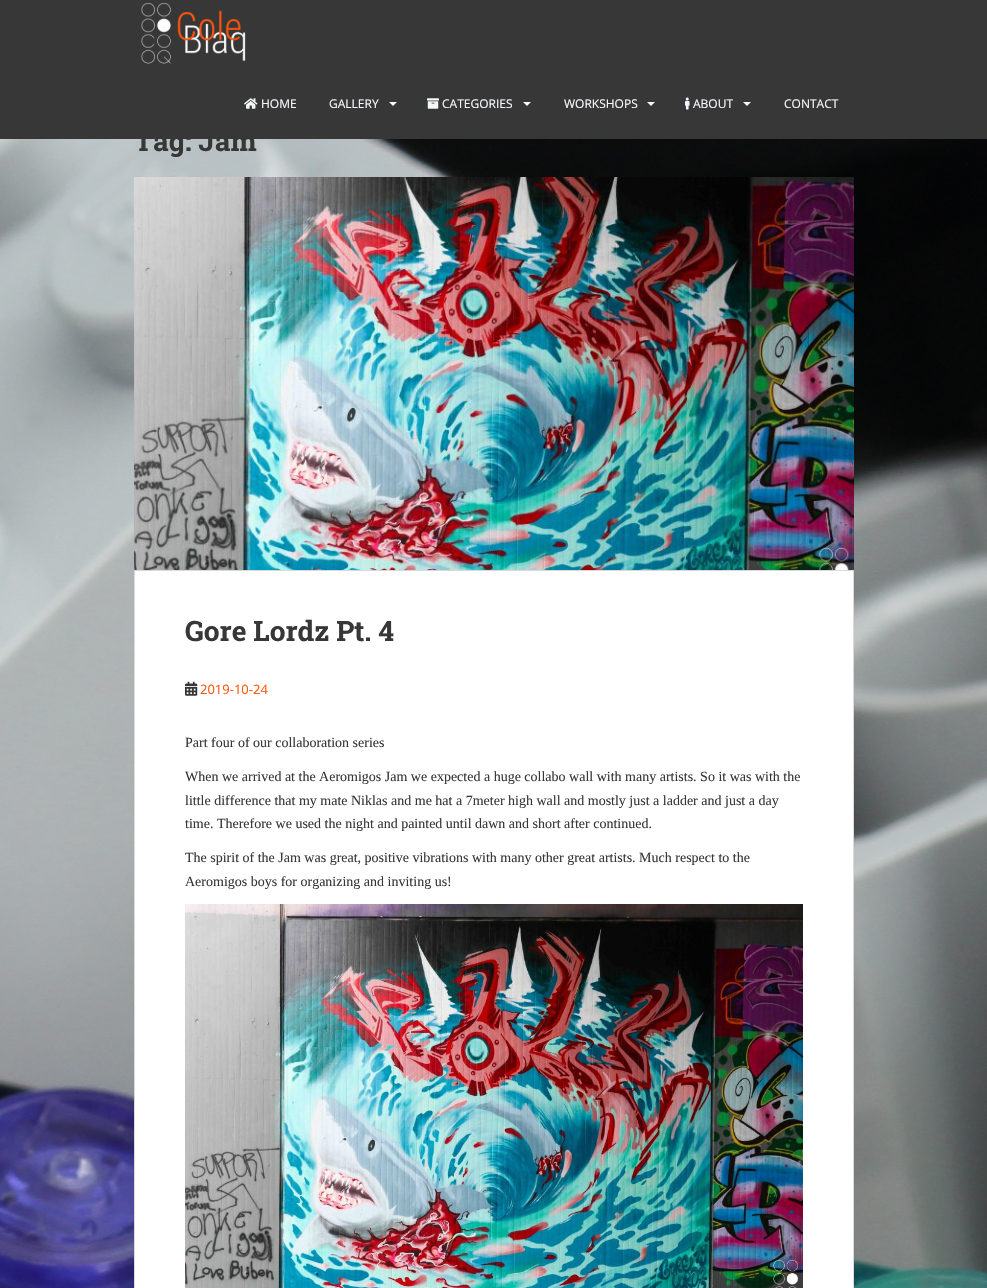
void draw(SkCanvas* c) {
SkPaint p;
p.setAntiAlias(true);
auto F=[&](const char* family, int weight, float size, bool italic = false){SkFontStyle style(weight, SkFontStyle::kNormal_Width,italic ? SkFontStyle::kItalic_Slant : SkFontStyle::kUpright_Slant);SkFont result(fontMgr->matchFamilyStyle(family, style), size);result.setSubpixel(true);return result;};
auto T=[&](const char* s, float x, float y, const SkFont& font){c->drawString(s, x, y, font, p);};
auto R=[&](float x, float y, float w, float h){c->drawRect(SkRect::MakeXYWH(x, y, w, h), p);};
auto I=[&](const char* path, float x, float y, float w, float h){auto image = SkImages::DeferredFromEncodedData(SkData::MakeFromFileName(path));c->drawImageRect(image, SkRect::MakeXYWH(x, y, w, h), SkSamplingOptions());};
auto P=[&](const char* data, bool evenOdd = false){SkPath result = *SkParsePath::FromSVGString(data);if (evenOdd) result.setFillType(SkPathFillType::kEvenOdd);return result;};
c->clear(0xffffffff);
I("1.png",0,139,987,1149);
p.setColor(0xff373737);
R(0,0,987,139);
I("2.png",141,2,105,62);
I("3.png",244,98,14,11);
auto f1 = F("Open Sans",400,12);
p.setColor(0xfff5f7fa);
T("HOME",261,108,f1);
T("GALLERY",329,108,f1);
c->drawPath(P("M389 102h8l-4 4z"),p);
I("4.png",427,98,12,11);
T("CATEGORIES",442,108,f1);
c->drawPath(P("M523 102h8l-4 4z"),p);
T("WORKSHOPS",564,108,f1);
c->drawPath(P("M647 102h8l-4 4z"),p);
I("5.png",685,97,5,13);
T("ABOUT",693,108,f1);
c->drawPath(P("M743 102h8l-4 4z"),p);
T("CONTACT",784,108,f1);
auto f2 = F("Roboto Slab",700,28);
p.setColor(0xff373737);
T("Tag: Jam",134,151,f2);
I("6.png",134,177,720,393);
p.setColor(0xffffffff);
c->drawRect(SkRect::MakeXYWH(134.5,570.5,719,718),p);
p.setStroke(true);
p.setStrokeWidth(1);
p.setColor(0xffdadada);
c->drawRect(SkRect::MakeXYWH(134.5,570.5,719,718),p);
p.setStroke(false);
p.setColor(0xff373737);
T("Gore Lordz Pt. 4",185,641,f2);
I("7.png",185,681,13,15);
auto f3 = F("Open Sans",400,13);
p.setColor(0xffff550d);
T("2019-10-24",200,694,f3);
auto f4 = F("Liberation Serif",400,14);
p.setColor(0xff373737);
T("Part four of our collaboration series",185,747,f4);
T("When we arrived at the Aeromigos Jam we expected a huge collabo wall with many artists. So it was with the",185,781,f4);
T("little difference that my mate Niklas and me hat a 7meter high wall and mostly just a ladder and just a day",185,805,f4);
T("time. Therefore we used the night and painted until dawn and short after continued.",185,828,f4);
T("The spirit of the Jam was great, positive vibrations with many other great artists. Much respect to the",185,862,f4);
T("Aeromigos boys for organizing and inviting us!",185,886,f4);
I("8.png",185,904,618,384);
}
